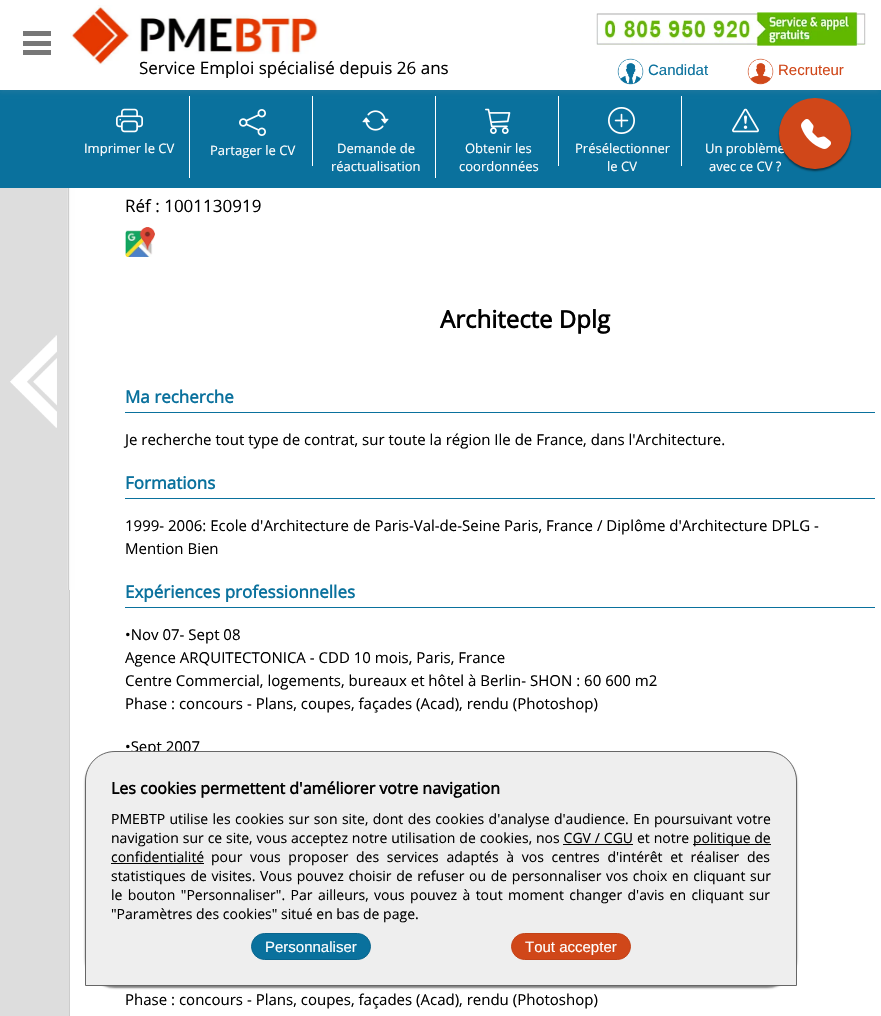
void draw(SkCanvas* c) {
SkPaint p;
p.setAntiAlias(true);
auto F=[&](const char* family, int weight, float size, bool italic = false){SkFontStyle style(weight, SkFontStyle::kNormal_Width,italic ? SkFontStyle::kItalic_Slant : SkFontStyle::kUpright_Slant);SkFont result(fontMgr->matchFamilyStyle(family, style), size);result.setSubpixel(true);return result;};
auto T=[&](const char* s, float x, float y, const SkFont& font){c->drawString(s, x, y, font, p);};
auto L=[&](const char* s, float x, float y, const SkFont& font, const SkPaint& ink, float letter, float word){std::vector<SkGlyphID> glyphs(font.countText(s, strlen(s), SkTextEncoding::kUTF8));std::vector<float> xs(glyphs.size());font.textToGlyphs(s, strlen(s), SkTextEncoding::kUTF8, glyphs);font.getXPos(glyphs, xs, x);float extra = 0;for (size_t i = 0; i < glyphs.size(); i++) {xs[i] += extra;extra += letter + word * (glyphs[i] == font.unicharToGlyph(' '));}c->drawTextBlob(SkTextBlob::MakeFromPosHGlyphs(glyphs, xs, y, font), 0, 0, ink);};
auto R=[&](float x, float y, float w, float h){c->drawRect(SkRect::MakeXYWH(x, y, w, h), p);};
auto Q=[&](float x, float y, float w, float h, float radius){c->drawRoundRect(SkRect::MakeXYWH(x, y, w, h), radius, radius, p);};
auto I=[&](const char* path, float x, float y, float w, float h){auto image = SkImages::DeferredFromEncodedData(SkData::MakeFromFileName(path));c->drawImageRect(image, SkRect::MakeXYWH(x, y, w, h), SkSamplingOptions());};
auto P=[&](const char* data, bool evenOdd = false){SkPath result = *SkParsePath::FromSVGString(data);if (evenOdd) result.setFillType(SkPathFillType::kEvenOdd);return result;};
c->clear(0xffdddddd);
p.setColor(0xffffffff);
R(70,188,811,828);
p.setStroke(true);
p.setStrokeWidth(1);
p.setColor(0xffcccccc);
c->drawRect(SkRect::MakeXYWH(69.5,90.5,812,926),p);
p.setStroke(false);
p.setColor(0xff0a719d);
R(0,90,881,98);
p.setColor(0x80000000);
p.setMaskFilter(SkMaskFilter::MakeBlur(kNormal_SkBlurStyle, 1));
c->drawRoundRect(SkRect::MakeXYWH(779,100,72,71),35.5,35.5,p);
p.setMaskFilter(nullptr);
auto f1 = F("Open Sans",400,13);
p.setColor(0xffffffff);
T("Un problème",705,153,f1);
T("avec ce CV ?",709,171,f1);
p.setColor(0xffd04719);
Q(779,98,72,71,35.5);
p.setColor(0xffffffff);
R(189,96,1,82);
R(312,96,1,70);
R(435,96,1,82);
R(558,96,1,70);
R(681,96,1,70);
p.setColor(0x1a9b9b9b);
p.setMaskFilter(SkMaskFilter::MakeBlur(kNormal_SkBlurStyle, 2));
c->drawRect(SkRect::MakeXYWH(-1,3,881,90),p);
p.setMaskFilter(nullptr);
p.setColor(0xffffffff);
R(0,0,881,90);
p.setColor(0xff777777);
R(23,31,28,5);
R(23,41,28,5);
R(23,50,28,5);
I("1.png",70,5,248,60);
auto f2 = F("Open Sans",400,17);
p.setColor(0xff000000);
T("Service Emploi spécialisé depuis 26 ans",139,74,f2);
I("2.png",596,12,270,34);
I("3.png",617,58,27,27);
auto f3 = F("Liberation Sans",400,15);
p.setColor(0xff0a719d);
T("Candidat",648,75,f3);
I("4.png",747,58,27,27);
p.setColor(0xffd04719);
T("Recruteur",778,75,f3);
I("5.png",801,119,30,30);
I("6.png",116,108,27,25);
p.setColor(0xffffffff);
T("Imprimer le CV",84,153,f1);
I("7.png",239,109,27,27);
T("Partager le CV",210,155,f1);
I("8.png",362,110,27,21);
T("Demande de",337,153,f1);
T("réactualisation",331,171,f1);
I("9.png",485,108,26,26);
T("Obtenir les",465,153,f1);
T("coordonnées",459,171,f1);
I("10.png",608,107,27,27);
T("Présélectionner",575,153,f1);
T("le CV",607,171,f1);
I("11.png",732,108,27,25);
I("12.png",10,335,47,93);
I("13.png",67,188,47,402);
p.setColor(0xff000000);
T("Réf : 1001130919",125,212,f2);
I("14.png",125,227,30,30);
auto f4 = F("Open Sans",700,24);
T("Architecte Dplg",440,328,f4);
auto f5 = F("Open Sans",700,17);
p.setColor(0xff0a719d);
T("Ma recherche",125,403,f5);
R(125,412,750,1);
auto f6 = F("Open Sans",400,15);
p.setColor(0xff000000);
T("Je recherche tout type de contrat, sur toute la région Ile de France, dans l'Architecture.",125,445,f6);
p.setColor(0xff0a719d);
T("Formations",125,489,f5);
R(125,498,750,1);
p.setColor(0xff000000);
T("1999- 2006: Ecole d'Architecture de Paris-Val-de-Seine Paris, France / Diplôme d'Architecture DPLG -",125,531,f6);
T("Mention Bien",125,554,f6);
p.setColor(0xff0a719d);
T("Expériences professionnelles",125,598,f5);
R(125,607,750,1);
p.setColor(0xff000000);
T("•Nov 07- Sept 08",125,640,f6);
T("Agence ARQUITECTONICA - CDD 10 mois, Paris, France",125,663,f6);
T("Centre Commercial, logements, bureaux et hôtel à Berlin- SHON : 60 600 m2",125,686,f6);
T("Phase : concours - Plans, coupes, façades (Acad), rendu (Photoshop)",125,709,f6);
T("•Sept 2007",125,752,f6);
T("Phase : concours - Plans, coupes, façades (Acad), rendu (Photoshop)",125,1005,f6);
p.setColor(0x80000000);
p.setMaskFilter(SkMaskFilter::MakeBlur(kNormal_SkBlurStyle, 1));
c->drawRoundRect(SkRect::MakeXYWH(85,753,712,235),30,30,p);
p.setMaskFilter(nullptr);
p.setColor(0xffeeeeee);
c->drawPath(P("M115 751.5h652c16.5 0 29.5 13 29.5 29.5v204.5h-711v-204.5c0-16.5 13-29.5 29.5-29.5z"),p);
p.setStroke(true);
p.setColor(0xff666666);
c->drawPath(P("M115 751.5h652c16.5 0 29.5 13 29.5 29.5v204.5h-711v-204.5c0-16.5 13-29.5 29.5-29.5z"),p);
auto f7 = F("Open Sans",700,16);
p.setStroke(false);
p.setColor(0xff000000);
T("Les cookies permettent d'améliorer votre navigation",111,794,f7);
auto f8 = F("Open Sans",400,14);
L("PMEBTP utilise les cookies sur son site, dont des cookies d'analyse d'audience. En poursuivant votre",111,824,f8,p,0,.75);
L("navigation sur ce site, vous acceptez notre utilisation de cookies, nos CGV / CGU et notre",111,843,f8,p,0,.25);
R(693,844,78,1);
T("politique de",693,843,f8);
R(563,844,70,1);
T("confidentialité",111,862,f8);
R(111,863,93,1);
L("pour vous proposer des services adaptés à vos centres d'intérêt et réaliser des",211,862,f8,p,0,4);
L("statistiques de visites.",111,881,f8,p,0,1);
L("Vous pouvez choisir de refuser ou de personnaliser vos choix en cliquant sur",260,881,f8,p,0,1);
L("le bouton \"Personnaliser\". Par ailleurs, vous pouvez à tout moment changer d'avis en cliquant sur",111,900,f8,p,0,1.75);
T("\"Paramètres des cookies\" situé en bas de page.",111,919,f8);
p.setColor(0xff0a719d);
c->drawRoundRect(SkRect::MakeXYWH(251.5,933.5,119,26),13,13,p);
p.setStroke(true);
p.setColor(0xff09658d);
c->drawRoundRect(SkRect::MakeXYWH(251.5,933.5,119,26),13,13,p);
p.setStroke(false);
p.setColor(0xffffffff);
T("Personnaliser",265,952,f3);
p.setColor(0xffd04719);
c->drawRoundRect(SkRect::MakeXYWH(511.5,933.5,119,26),13,13,p);
p.setStroke(true);
p.setColor(0xffc24218);
c->drawRoundRect(SkRect::MakeXYWH(511.5,933.5,119,26),13,13,p);
p.setStroke(false);
p.setColor(0xffffffff);
T("Tout accepter",525,952,f3);
}
